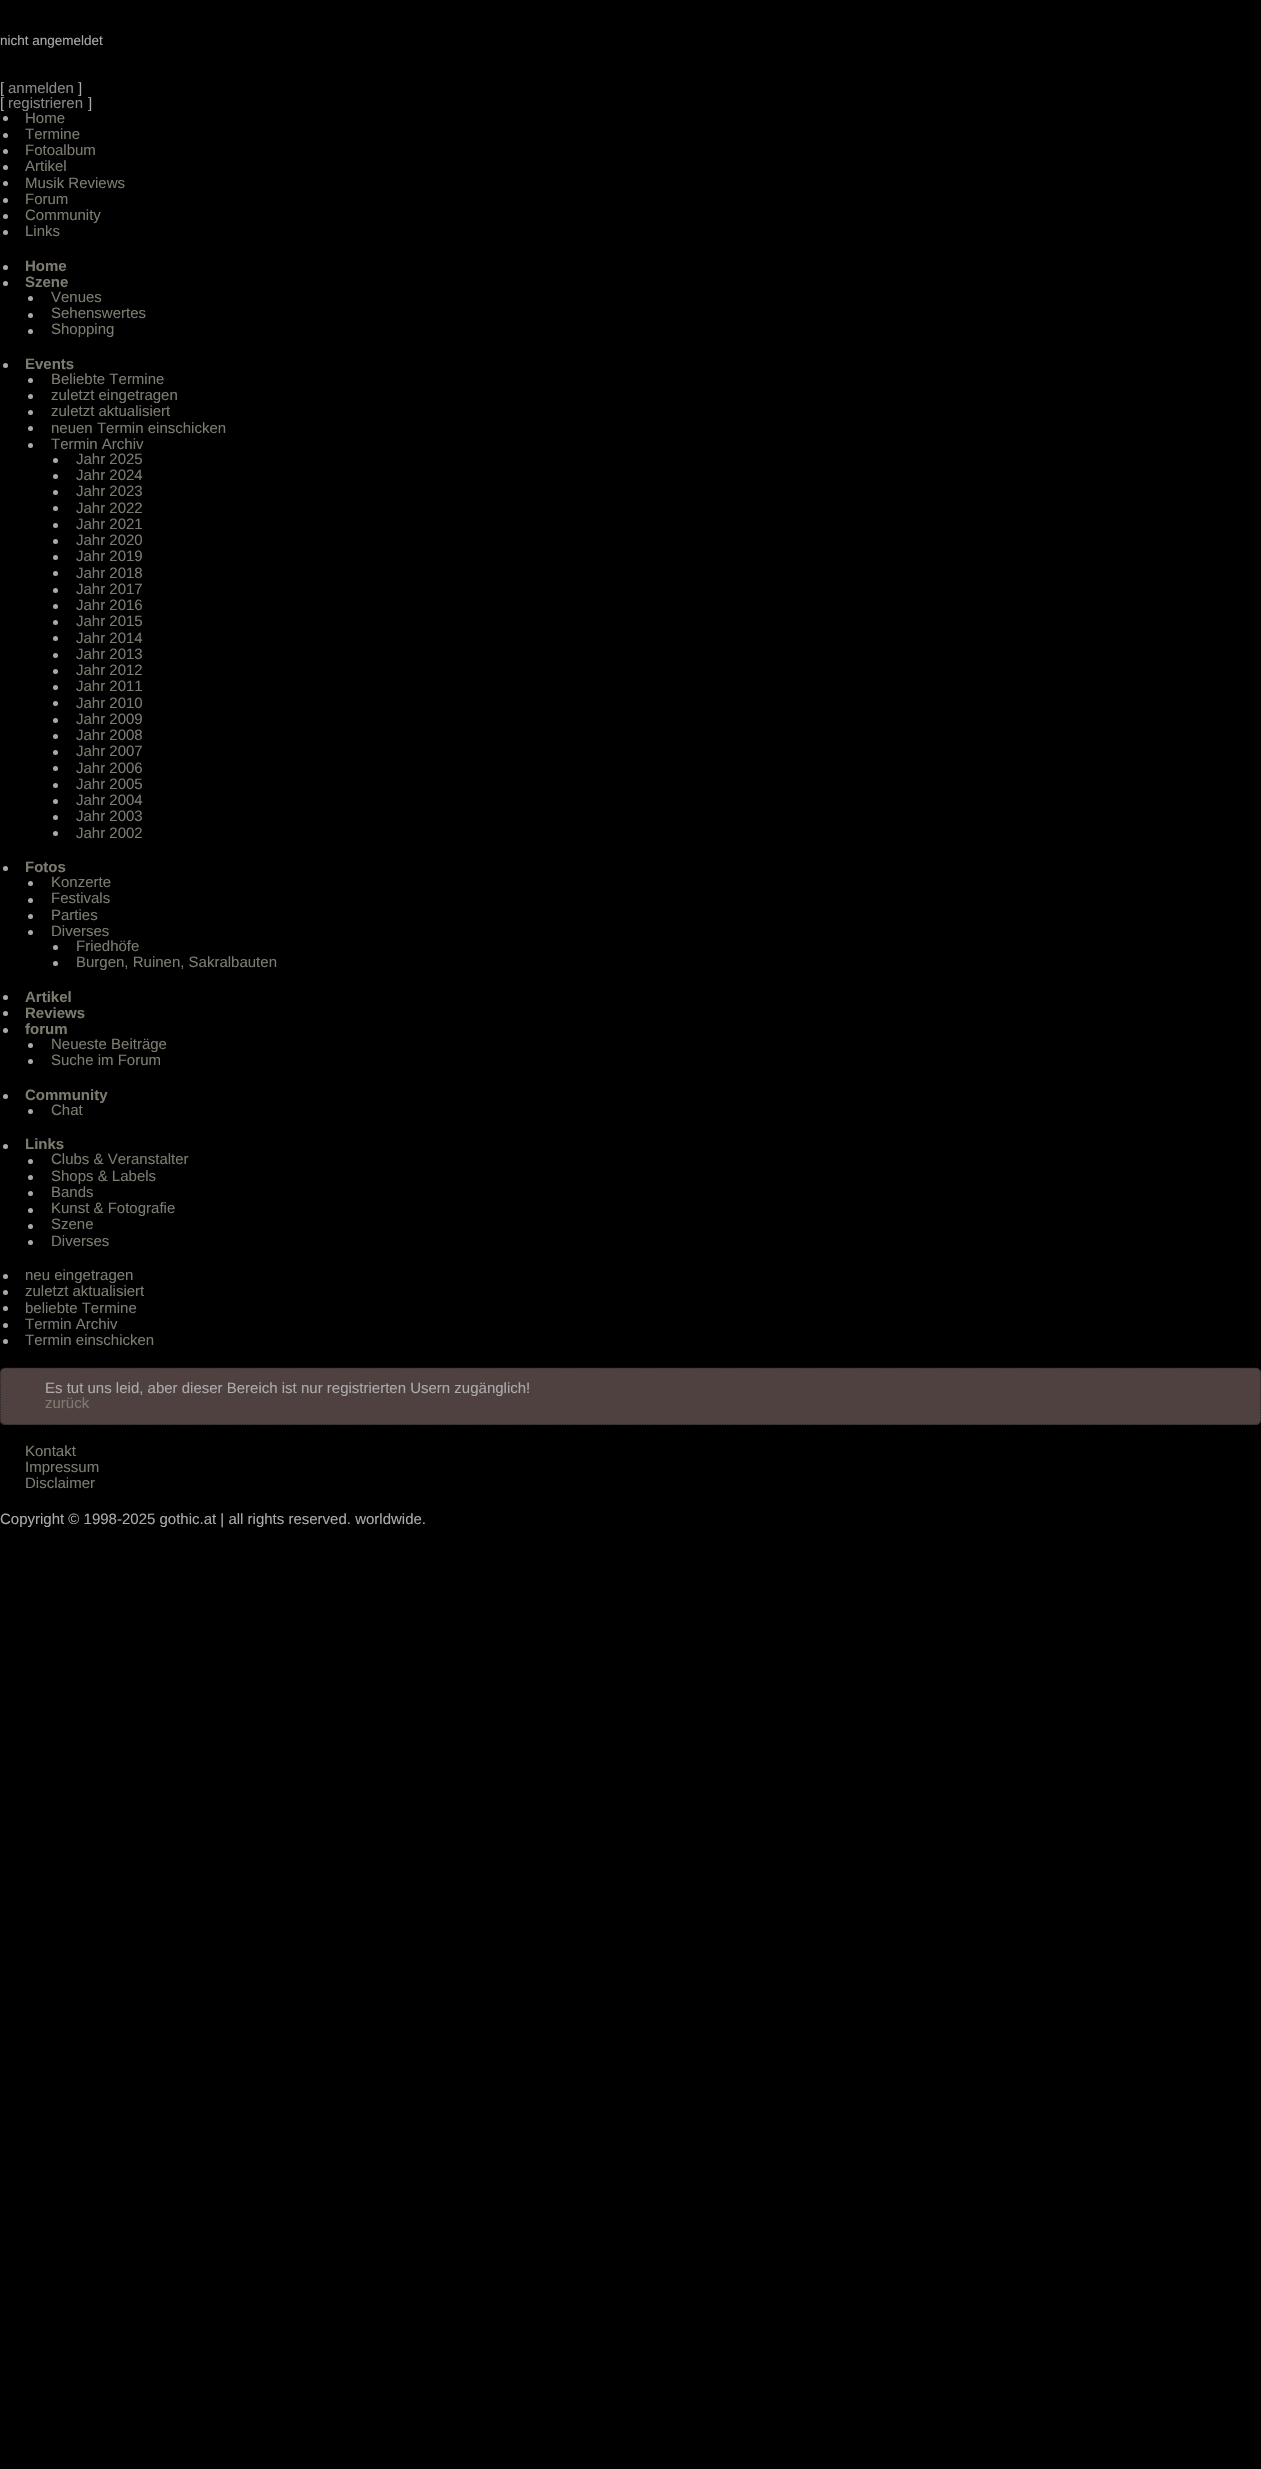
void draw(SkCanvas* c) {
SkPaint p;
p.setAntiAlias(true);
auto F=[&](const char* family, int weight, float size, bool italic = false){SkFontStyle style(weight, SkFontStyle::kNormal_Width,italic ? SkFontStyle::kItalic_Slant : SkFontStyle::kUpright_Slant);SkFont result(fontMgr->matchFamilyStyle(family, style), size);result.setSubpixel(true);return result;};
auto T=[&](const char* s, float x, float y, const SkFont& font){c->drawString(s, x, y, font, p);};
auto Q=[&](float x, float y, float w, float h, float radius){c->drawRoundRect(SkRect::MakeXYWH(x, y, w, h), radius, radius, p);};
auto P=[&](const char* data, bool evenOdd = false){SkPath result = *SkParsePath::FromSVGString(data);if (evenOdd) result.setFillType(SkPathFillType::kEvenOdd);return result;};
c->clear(0xff000000);
auto f1 = F("Liberation Sans",400,13.5);
p.setColor(0xffaaaaaa);
T("nicht angemeldet",0,45,f1);
auto f2 = F("Liberation Sans",400,15);
T("[",0,93,f2);
p.setColor(0xff888888);
T("anmelden",8,93,f2);
p.setColor(0xffaaaaaa);
T("]",78,93,f2);
T("[",0,108,f2);
p.setColor(0xff888888);
T("registrieren",8,108,f2);
p.setColor(0xffaaaaaa);
T("]",88,108,f2);
c->drawCircle(5.5,118.5,2.5,p);
p.setColor(0xff7d7b70);
T("Home",25,123,f2);
p.setColor(0xffaaaaaa);
c->drawCircle(5.5,135.5,2.5,p);
p.setColor(0xff7d7b70);
T("Termine",25,139,f2);
p.setColor(0xffaaaaaa);
c->drawCircle(5.5,151.5,2.5,p);
p.setColor(0xff7d7b70);
T("Fotoalbum",25,155,f2);
p.setColor(0xffaaaaaa);
c->drawCircle(5.5,167.5,2.5,p);
p.setColor(0xff7d7b70);
T("Artikel",25,171,f2);
p.setColor(0xffaaaaaa);
c->drawCircle(5.5,183.5,2.5,p);
p.setColor(0xff7d7b70);
T("Musik Reviews",25,188,f2);
p.setColor(0xffaaaaaa);
c->drawCircle(5.5,200.5,2.5,p);
p.setColor(0xff7d7b70);
T("Forum",25,204,f2);
p.setColor(0xffaaaaaa);
c->drawCircle(5.5,216.5,2.5,p);
p.setColor(0xff7d7b70);
T("Community",25,220,f2);
p.setColor(0xffaaaaaa);
c->drawCircle(5.5,232.5,2.5,p);
p.setColor(0xff7d7b70);
T("Links",25,236,f2);
p.setColor(0xffaaaaaa);
c->drawCircle(5.5,267.5,2.5,p);
auto f3 = F("Liberation Sans",700,15);
p.setColor(0xff7d7b70);
T("Home",25,271,f3);
p.setColor(0xffaaaaaa);
c->drawCircle(5.5,283.5,2.5,p);
p.setColor(0xff7d7b70);
T("Szene",25,287,f3);
p.setColor(0xffaaaaaa);
c->drawCircle(30.5,298.5,2.5,p);
p.setColor(0xff7d7b70);
T("Venues",51,302,f2);
p.setColor(0xffaaaaaa);
c->drawCircle(30.5,315.5,2.5,p);
p.setColor(0xff7d7b70);
T("Sehenswertes",51,318,f2);
p.setColor(0xffaaaaaa);
c->drawCircle(30.5,331.5,2.5,p);
p.setColor(0xff7d7b70);
T("Shopping",51,334,f2);
p.setColor(0xffaaaaaa);
c->drawCircle(5.5,365.5,2.5,p);
p.setColor(0xff7d7b70);
T("Events",25,369,f3);
p.setColor(0xffaaaaaa);
c->drawCircle(30.5,380.5,2.5,p);
p.setColor(0xff7d7b70);
T("Beliebte Termine",51,384,f2);
p.setColor(0xffaaaaaa);
c->drawCircle(30.5,396.5,2.5,p);
p.setColor(0xff7d7b70);
T("zuletzt eingetragen",51,400,f2);
p.setColor(0xffaaaaaa);
c->drawCircle(30.5,412.5,2.5,p);
p.setColor(0xff7d7b70);
T("zuletzt aktualisiert",51,416,f2);
p.setColor(0xffaaaaaa);
c->drawCircle(30.5,428.5,2.5,p);
p.setColor(0xff7d7b70);
T("neuen Termin einschicken",51,433,f2);
p.setColor(0xffaaaaaa);
c->drawCircle(30.5,445.5,2.5,p);
p.setColor(0xff7d7b70);
T("Termin Archiv",51,449,f2);
p.setColor(0xffaaaaaa);
c->drawCircle(55.5,460.5,2.5,p);
p.setColor(0xff7d7b70);
T("Jahr 2025",76,464,f2);
p.setColor(0xffaaaaaa);
c->drawCircle(55.5,476.5,2.5,p);
p.setColor(0xff7d7b70);
T("Jahr 2024",76,480,f2);
p.setColor(0xffaaaaaa);
c->drawCircle(55.5,492.5,2.5,p);
p.setColor(0xff7d7b70);
T("Jahr 2023",76,496,f2);
p.setColor(0xffaaaaaa);
c->drawCircle(55.5,508.5,2.5,p);
p.setColor(0xff7d7b70);
T("Jahr 2022",76,513,f2);
p.setColor(0xffaaaaaa);
c->drawCircle(55.5,525.5,2.5,p);
p.setColor(0xff7d7b70);
T("Jahr 2021",76,529,f2);
p.setColor(0xffaaaaaa);
c->drawCircle(55.5,541.5,2.5,p);
p.setColor(0xff7d7b70);
T("Jahr 2020",76,545,f2);
p.setColor(0xffaaaaaa);
c->drawCircle(55.5,557.5,2.5,p);
p.setColor(0xff7d7b70);
T("Jahr 2019",76,561,f2);
p.setColor(0xffaaaaaa);
c->drawCircle(55.5,573.5,2.5,p);
p.setColor(0xff7d7b70);
T("Jahr 2018",76,578,f2);
p.setColor(0xffaaaaaa);
c->drawCircle(55.5,590.5,2.5,p);
p.setColor(0xff7d7b70);
T("Jahr 2017",76,594,f2);
p.setColor(0xffaaaaaa);
c->drawCircle(55.5,606.5,2.5,p);
p.setColor(0xff7d7b70);
T("Jahr 2016",76,610,f2);
p.setColor(0xffaaaaaa);
c->drawCircle(55.5,622.5,2.5,p);
p.setColor(0xff7d7b70);
T("Jahr 2015",76,626,f2);
p.setColor(0xffaaaaaa);
c->drawCircle(55.5,638.5,2.5,p);
p.setColor(0xff7d7b70);
T("Jahr 2014",76,643,f2);
p.setColor(0xffaaaaaa);
c->drawCircle(55.5,655.5,2.5,p);
p.setColor(0xff7d7b70);
T("Jahr 2013",76,659,f2);
p.setColor(0xffaaaaaa);
c->drawCircle(55.5,671.5,2.5,p);
p.setColor(0xff7d7b70);
T("Jahr 2012",76,675,f2);
p.setColor(0xffaaaaaa);
c->drawCircle(55.5,687.5,2.5,p);
p.setColor(0xff7d7b70);
T("Jahr 2011",76,691,f2);
p.setColor(0xffaaaaaa);
c->drawCircle(55.5,703.5,2.5,p);
p.setColor(0xff7d7b70);
T("Jahr 2010",76,708,f2);
p.setColor(0xffaaaaaa);
c->drawCircle(55.5,720.5,2.5,p);
p.setColor(0xff7d7b70);
T("Jahr 2009",76,724,f2);
p.setColor(0xffaaaaaa);
c->drawCircle(55.5,736.5,2.5,p);
p.setColor(0xff7d7b70);
T("Jahr 2008",76,740,f2);
p.setColor(0xffaaaaaa);
c->drawCircle(55.5,752.5,2.5,p);
p.setColor(0xff7d7b70);
T("Jahr 2007",76,756,f2);
p.setColor(0xffaaaaaa);
c->drawCircle(55.5,768.5,2.5,p);
p.setColor(0xff7d7b70);
T("Jahr 2006",76,773,f2);
p.setColor(0xffaaaaaa);
c->drawCircle(55.5,785.5,2.5,p);
p.setColor(0xff7d7b70);
T("Jahr 2005",76,789,f2);
p.setColor(0xffaaaaaa);
c->drawCircle(55.5,801.5,2.5,p);
p.setColor(0xff7d7b70);
T("Jahr 2004",76,805,f2);
p.setColor(0xffaaaaaa);
c->drawCircle(55.5,817.5,2.5,p);
p.setColor(0xff7d7b70);
T("Jahr 2003",76,821,f2);
p.setColor(0xffaaaaaa);
c->drawCircle(55.5,833.5,2.5,p);
p.setColor(0xff7d7b70);
T("Jahr 2002",76,838,f2);
p.setColor(0xffaaaaaa);
c->drawCircle(5.5,868.5,2.5,p);
p.setColor(0xff7d7b70);
T("Fotos",25,872,f3);
p.setColor(0xffaaaaaa);
c->drawCircle(30.5,883.5,2.5,p);
p.setColor(0xff7d7b70);
T("Konzerte",51,887,f2);
p.setColor(0xffaaaaaa);
c->drawCircle(30.5,900.5,2.5,p);
p.setColor(0xff7d7b70);
T("Festivals",51,903,f2);
p.setColor(0xffaaaaaa);
c->drawCircle(30.5,916.5,2.5,p);
p.setColor(0xff7d7b70);
T("Parties",51,920,f2);
p.setColor(0xffaaaaaa);
c->drawCircle(30.5,932.5,2.5,p);
p.setColor(0xff7d7b70);
T("Diverses",51,936,f2);
p.setColor(0xffaaaaaa);
c->drawCircle(55.5,947.5,2.5,p);
p.setColor(0xff7d7b70);
T("Friedhöfe",76,951,f2);
p.setColor(0xffaaaaaa);
c->drawCircle(55.5,963.5,2.5,p);
p.setColor(0xff7d7b70);
T("Burgen, Ruinen, Sakralbauten",76,967,f2);
p.setColor(0xffaaaaaa);
c->drawCircle(5.5,997.5,2.5,p);
p.setColor(0xff7d7b70);
T("Artikel",25,1002,f3);
p.setColor(0xffaaaaaa);
c->drawCircle(5.5,1013.5,2.5,p);
p.setColor(0xff7d7b70);
T("Reviews",25,1018,f3);
p.setColor(0xffaaaaaa);
c->drawCircle(5.5,1030.5,2.5,p);
p.setColor(0xff7d7b70);
T("forum",25,1034,f3);
p.setColor(0xffaaaaaa);
c->drawCircle(30.5,1045.5,2.5,p);
p.setColor(0xff7d7b70);
T("Neueste Beiträge",51,1049,f2);
p.setColor(0xffaaaaaa);
c->drawCircle(30.5,1061.5,2.5,p);
p.setColor(0xff7d7b70);
T("Suche im Forum",51,1065,f2);
p.setColor(0xffaaaaaa);
c->drawCircle(5.5,1096.5,2.5,p);
p.setColor(0xff7d7b70);
T("Community",25,1100,f3);
p.setColor(0xffaaaaaa);
c->drawCircle(30.5,1111.5,2.5,p);
p.setColor(0xff7d7b70);
T("Chat",51,1115,f2);
p.setColor(0xffaaaaaa);
c->drawCircle(5.5,1146.5,2.5,p);
p.setColor(0xff7d7b70);
T("Links",25,1149,f3);
p.setColor(0xffaaaaaa);
c->drawCircle(30.5,1161.5,2.5,p);
p.setColor(0xff7d7b70);
T("Clubs & Veranstalter",51,1164,f2);
p.setColor(0xffaaaaaa);
c->drawCircle(30.5,1177.5,2.5,p);
p.setColor(0xff7d7b70);
T("Shops & Labels",51,1181,f2);
p.setColor(0xffaaaaaa);
c->drawCircle(30.5,1193.5,2.5,p);
p.setColor(0xff7d7b70);
T("Bands",51,1197,f2);
p.setColor(0xffaaaaaa);
c->drawCircle(30.5,1210.5,2.5,p);
p.setColor(0xff7d7b70);
T("Kunst & Fotografie",51,1213,f2);
p.setColor(0xffaaaaaa);
c->drawCircle(30.5,1226.5,2.5,p);
p.setColor(0xff7d7b70);
T("Szene",51,1229,f2);
p.setColor(0xffaaaaaa);
c->drawCircle(30.5,1242.5,2.5,p);
p.setColor(0xff7d7b70);
T("Diverses",51,1246,f2);
p.setColor(0xffaaaaaa);
c->drawCircle(5.5,1276.5,2.5,p);
p.setColor(0xff7d7b70);
T("neu eingetragen",25,1280,f2);
p.setColor(0xffaaaaaa);
c->drawCircle(5.5,1292.5,2.5,p);
p.setColor(0xff7d7b70);
T("zuletzt aktualisiert",25,1296,f2);
p.setColor(0xffaaaaaa);
c->drawCircle(5.5,1308.5,2.5,p);
p.setColor(0xff7d7b70);
T("beliebte Termine",25,1313,f2);
p.setColor(0xffaaaaaa);
c->drawCircle(5.5,1325.5,2.5,p);
p.setColor(0xff7d7b70);
T("Termin Archiv",25,1329,f2);
p.setColor(0xffaaaaaa);
c->drawCircle(5.5,1341.5,2.5,p);
p.setColor(0xff7d7b70);
T("Termin einschicken",25,1345,f2);
p.setColor(0xff504141);
Q(0,1368,1261,57,5);
p.setStroke(true);
p.setStrokeWidth(1.2);
p.setColor(0xff252525);
p.setPathEffect(SkDashPathEffect::Make({{1.25f,1.25f}}, 0));
c->drawPath(P("M5 1368h1251c2.5 0 4.5 2 4.5 4.5v47.5c0 2.5-2 4.5-4.5 4.5h-1251c-2.5 0-4.5-2-4.5-4.5v-47.5c0-2.5 2-4.5 4.5-4.5z"),p);
p.setPathEffect(nullptr);
p.setStroke(false);
p.setColor(0xffaaaaaa);
T("Es tut uns leid, aber dieser Bereich ist nur registrierten Usern zugänglich!",45,1393,f2);
p.setColor(0xff7d7b70);
T("zurück",45,1408,f2);
T("Kontakt",25,1456,f2);
T("Impressum",25,1472,f2);
T("Disclaimer",25,1488,f2);
p.setColor(0xffaaaaaa);
T("Copyright © 1998-2025 gothic.at | all rights reserved. worldwide.",0,1524,f2);
}
